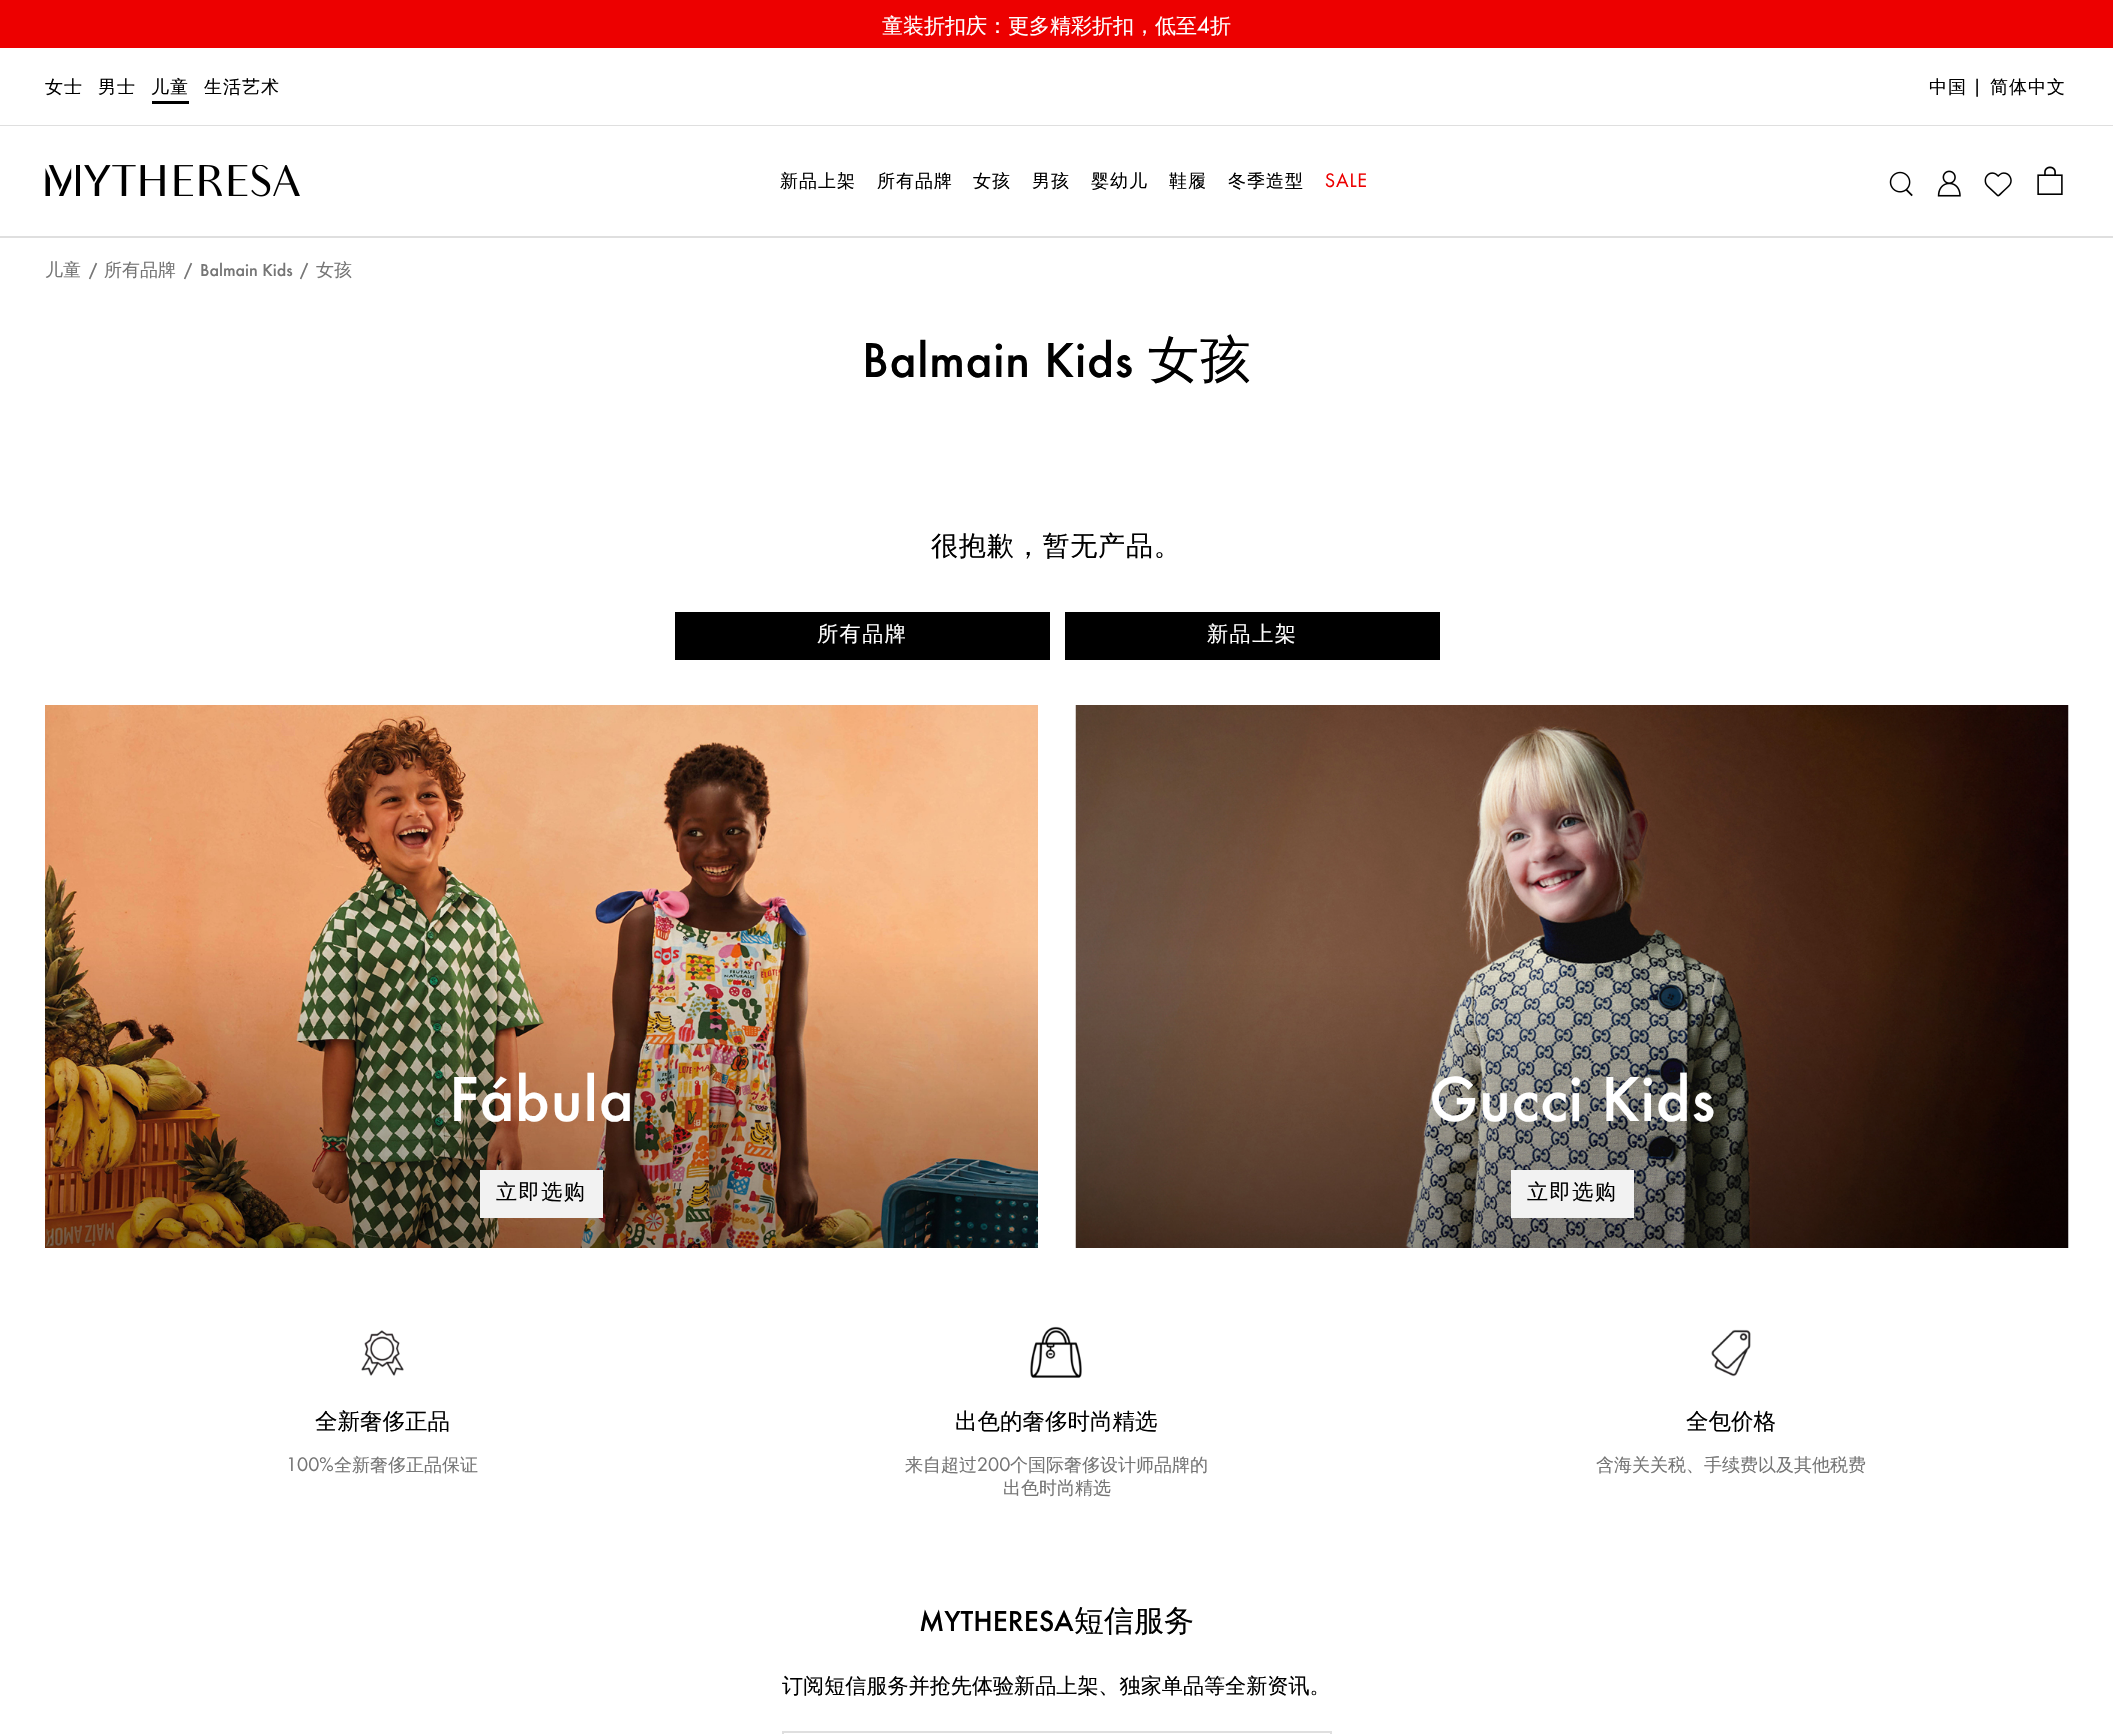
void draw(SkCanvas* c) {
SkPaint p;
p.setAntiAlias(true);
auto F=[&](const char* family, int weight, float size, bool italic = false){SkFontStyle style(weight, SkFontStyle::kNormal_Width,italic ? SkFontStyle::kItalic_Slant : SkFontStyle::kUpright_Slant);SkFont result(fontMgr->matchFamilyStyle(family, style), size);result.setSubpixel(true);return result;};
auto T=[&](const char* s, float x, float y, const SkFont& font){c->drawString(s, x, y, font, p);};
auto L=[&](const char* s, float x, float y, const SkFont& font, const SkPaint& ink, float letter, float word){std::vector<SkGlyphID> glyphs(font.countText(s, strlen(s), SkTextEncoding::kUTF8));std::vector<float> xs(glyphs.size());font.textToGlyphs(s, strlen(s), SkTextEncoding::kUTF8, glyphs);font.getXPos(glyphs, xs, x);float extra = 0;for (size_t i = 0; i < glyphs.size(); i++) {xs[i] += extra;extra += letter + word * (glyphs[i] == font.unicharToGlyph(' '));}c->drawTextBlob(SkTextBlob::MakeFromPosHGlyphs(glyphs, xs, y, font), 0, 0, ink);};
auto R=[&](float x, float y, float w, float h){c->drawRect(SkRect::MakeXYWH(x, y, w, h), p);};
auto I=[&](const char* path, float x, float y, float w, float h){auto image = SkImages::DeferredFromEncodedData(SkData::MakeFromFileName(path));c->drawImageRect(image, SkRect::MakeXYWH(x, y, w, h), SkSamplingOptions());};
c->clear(0xffffffff);
p.setColor(0xffed0000);
R(0,0,2113,48);
auto f1 = F("WenQuanYi Zen Hei",500,21);
p.setColor(0xffffffff);
T("童装折扣庆：更多精彩折扣，低至",882,33,f1);
auto f2 = F("Futura",400,21);
T("4",1197,33,f2);
T("折",1210,33,f1);
p.setColor(0xffdfdfdf);
R(0,125,2113,1);
auto f3 = F("WenQuanYi Zen Hei",500,18);
p.setColor(0xff000000);
L("女士",45,93,f3,p,1,0);
L("男士",98,93,f3,p,1,0);
R(152,101,37,3);
L("儿童",151,93,f3,p,1,0);
L("生活艺术",204,93,f3,p,1,0);
L("中国",1929,93,f3,p,1,0);
auto f4 = F("Futura",400,18);
L("|",1972,93,f4,p,1,0);
L("简体中文",1990,93,f3,p,1,0);
p.setColor(0xffdfdfdf);
R(0,236,2113,2);
I("1.png",45,165,255,32);
p.setColor(0xff000000);
L("新品上架",780,187,f3,p,1,0);
L("所有品牌",877,187,f3,p,1,0);
L("女孩",973,187,f3,p,1,0);
L("男孩",1032,187,f3,p,1,0);
L("婴幼儿",1091,187,f3,p,1,0);
L("鞋履",1169,187,f3,p,1,0);
L("冬季造型",1228,187,f3,p,1,0);
p.setColor(0xffed0000);
L("SALE",1325,187,f4,p,1,0);
I("2.png",1889,171,24,26);
I("3.png",1937,170,24,27);
I("4.png",1984,172,28,25);
I("5.png",2037,166,26,29);
p.setColor(0xff757575);
T("儿童",45,276,f3);
auto f5 = F("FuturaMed",400,18);
T("/",89,276,f5);
T("所有品牌",104,276,f3);
T("/",184,276,f5);
T("Balmain Kids",200,276,f5);
T("/",300,276,f5);
T("女孩",316,276,f3);
auto f6 = F("FuturaMed",400,51);
p.setColor(0xff000000);
L("Balmain Kids",862,377,f6,p,.75,0);
auto f7 = F("WenQuanYi Zen Hei",500,51);
L("女孩",1148,377,f7,p,.75,0);
auto f8 = F("WenQuanYi Zen Hei",500,27.1);
L("很抱歉，暂无产品。",931,555,f8,p,.75,0);
R(675,612,375,48);
auto f9 = F("WenQuanYi Zen Hei",500,21.1);
p.setColor(0xffffffff);
L("所有品牌",817,641,f9,p,1.5,0);
p.setColor(0xff000000);
R(1065,612,375,48);
p.setColor(0xffffffff);
L("新品上架",1207,641,f9,p,1.5,0);
I("6.png",45,705,993,543);
auto f10 = F("FuturaMed",400,66);
L("Fábula",449,1121,f10,p,.75,0);
p.setColor(0xfff2f2f2);
R(480,1170,123,48);
p.setColor(0xff000000);
L("立即选购",496,1199,f9,p,1.5,0);
I("7.png",1075,705,994,543);
p.setColor(0xffffffff);
L("Gucci Kids",1429,1121,f10,p,.75,0);
p.setColor(0xfff2f2f2);
R(1511,1170,123,48);
p.setColor(0xff000000);
L("立即选购",1527,1199,f9,p,1.5,0);
I("8.png",361,1330,43,46);
auto f11 = F("WenQuanYi Zen Hei",500,22.5);
T("全新奢侈正品",315,1429,f11);
p.setColor(0xff757575);
T("100%",286,1471,f4);
T("全新奢侈正品保证",334,1471,f3);
I("9.png",1030,1326,52,52);
p.setColor(0xff000000);
T("出色的奢侈时尚精选",955,1429,f11);
p.setColor(0xff757575);
T("来自超过",905,1471,f3);
T("200",977,1471,f4);
T("个国际奢侈设计师品牌的",1010,1471,f3);
T("出色时尚精选",1003,1494,f3);
I("10.png",1711,1329,40,48);
p.setColor(0xff000000);
T("全包价格",1686,1429,f11);
p.setColor(0xff757575);
T("含海关关税、手续费以及其他税费",1596,1471,f3);
auto f12 = F("FuturaMed",400,30);
p.setColor(0xff000000);
T("MYTHERESA",919,1631,f12);
auto f13 = F("WenQuanYi Zen Hei",500,30);
T("短信服务",1074,1631,f13);
T("订阅短信服务并抢先体验新品上架、独家单品等全新资讯。",782,1693,f9);
p.setStroke(true);
p.setStrokeWidth(2);
p.setColor(0xffdfdfdf);
c->drawRect(SkRect::MakeXYWH(783,1732,548,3),p);
}
